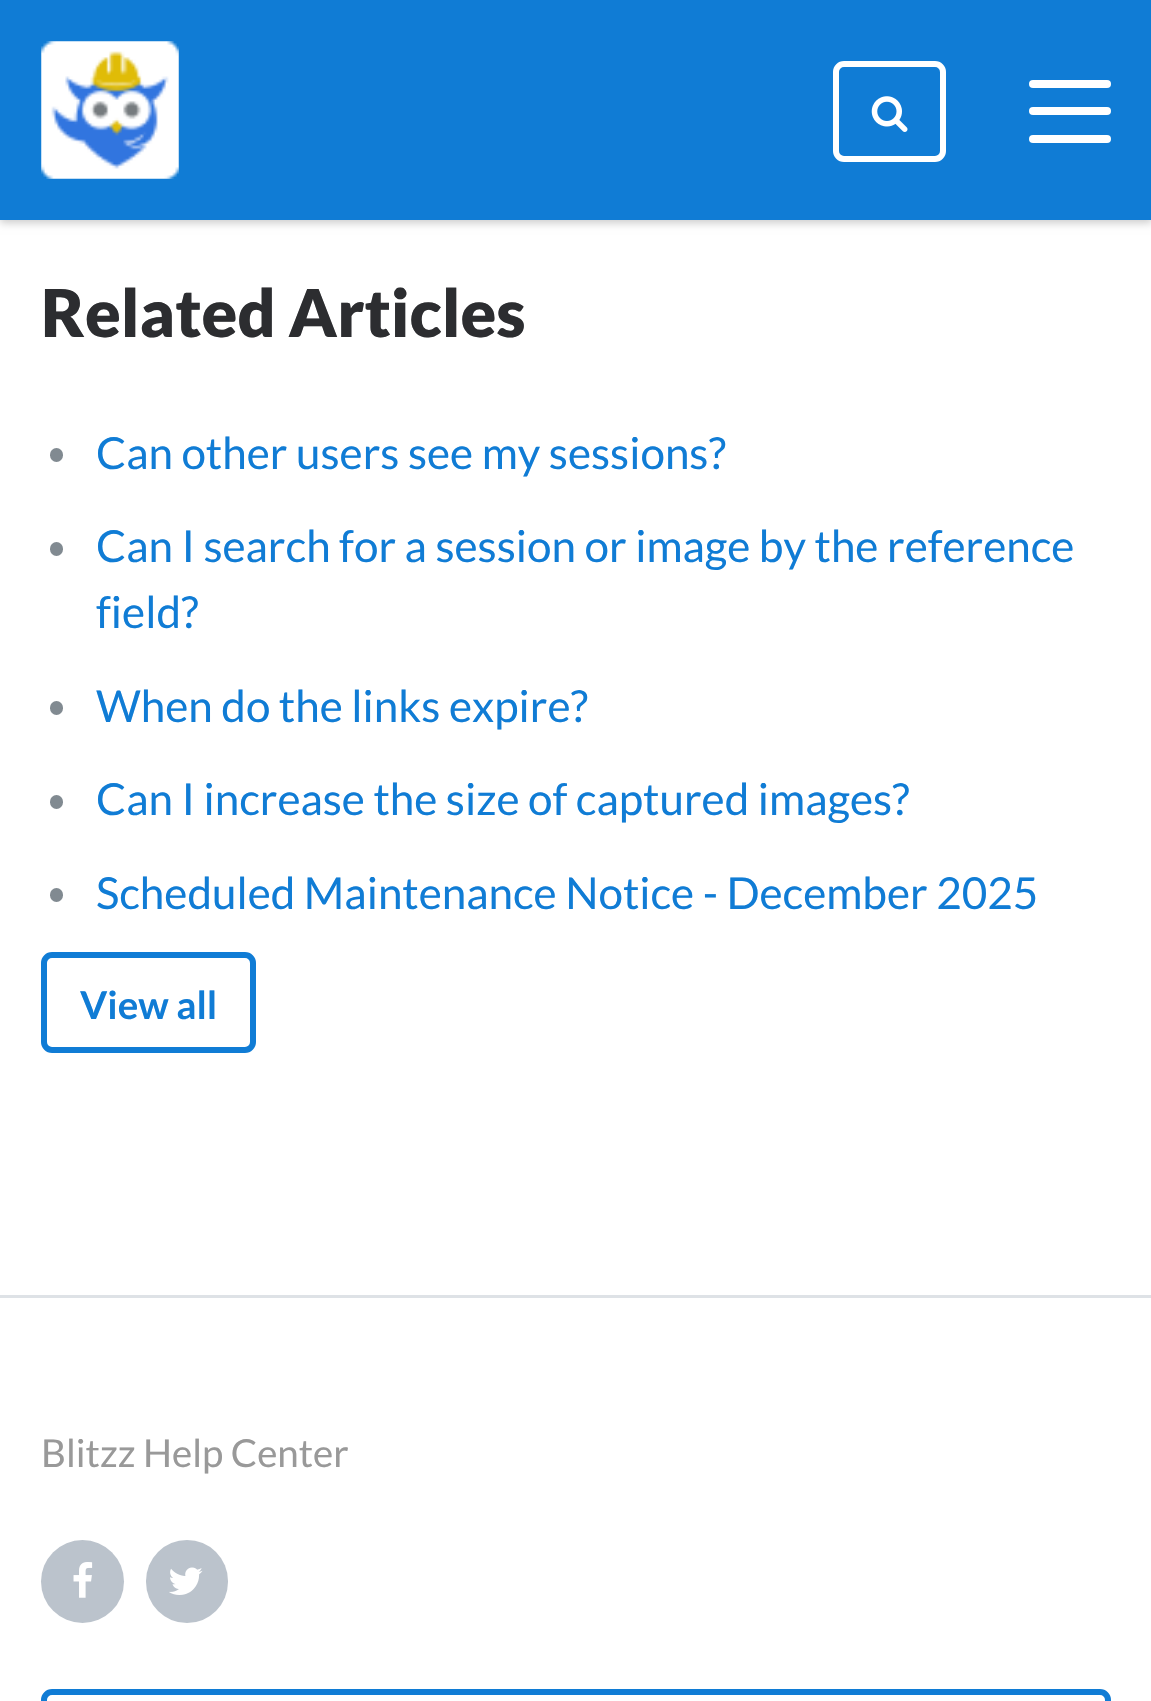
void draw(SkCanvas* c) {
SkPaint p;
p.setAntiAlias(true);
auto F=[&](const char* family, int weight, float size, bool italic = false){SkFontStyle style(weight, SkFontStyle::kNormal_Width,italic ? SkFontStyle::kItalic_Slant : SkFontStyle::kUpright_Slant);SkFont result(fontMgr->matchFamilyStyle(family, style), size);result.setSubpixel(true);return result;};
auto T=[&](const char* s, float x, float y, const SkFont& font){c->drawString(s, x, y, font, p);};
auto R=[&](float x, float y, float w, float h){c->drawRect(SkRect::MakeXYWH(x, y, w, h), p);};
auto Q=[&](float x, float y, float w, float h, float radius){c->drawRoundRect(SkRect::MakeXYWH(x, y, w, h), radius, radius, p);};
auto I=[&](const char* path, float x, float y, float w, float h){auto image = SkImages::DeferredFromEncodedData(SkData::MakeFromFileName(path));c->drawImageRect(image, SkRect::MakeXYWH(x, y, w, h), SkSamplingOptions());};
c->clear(0xffffffff);
p.setColor(0x33000000);
p.setMaskFilter(SkMaskFilter::MakeBlur(kNormal_SkBlurStyle, 4));
c->drawRect(SkRect::MakeXYWH(0,3,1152,220),p);
p.setMaskFilter(nullptr);
p.setColor(0xff107cd5);
R(0,0,1151,220);
I("1.png",41,41,138,138);
p.setStroke(true);
p.setStrokeWidth(6);
p.setColor(0xffffffff);
c->drawRoundRect(SkRect::MakeXYWH(836,64,107,95),8,8,p);
I("2.png",871,96,37,36);
p.setStroke(false);
Q(1029,107,82,8,4);
Q(1029,80,82,8,4);
Q(1029,135,82,8,4);
auto f1 = F("Lato",900,66);
p.setColor(0xff2c2d30);
T("Related Articles",41,337,f1);
p.setColor(0xff818a91);
Q(50,448,13,14,6.5);
auto f2 = F("Lato",400,44);
p.setColor(0xff107cd5);
T("Can other users see my sessions?",96,469,f2);
p.setColor(0xff818a91);
Q(50,542,13,14,6.5);
p.setColor(0xff107cd5);
T("Can I search for a session or image by the reference",96,562,f2);
T("field?",96,628,f2);
p.setColor(0xff818a91);
Q(50,701,13,14,6.5);
p.setColor(0xff107cd5);
T("When do the links expire?",96,722,f2);
p.setColor(0xff818a91);
Q(50,795,13,14,6.5);
p.setColor(0xff107cd5);
T("Can I increase the size of captured images?",96,815,f2);
p.setColor(0xff818a91);
Q(50,888,13,14,6.5);
p.setColor(0xff107cd5);
T("Scheduled Maintenance Notice - December 2025",96,909,f2);
p.setStroke(true);
c->drawRoundRect(SkRect::MakeXYWH(44,955,209,95),8,8,p);
auto f3 = F("Lato",700,38.5);
p.setStroke(false);
T("View all",80,1019,f3);
p.setColor(0xffdee2e6);
R(0,1295,1151,3);
auto f4 = F("Lato",400,38.5);
p.setColor(0xff999999);
T("Blitzz Help Center",41,1467,f4);
p.setColor(0xffbbc3cc);
c->drawCircle(82.5,1581.5,41.5,p);
I("3.png",73,1562,20,36);
Q(146,1540,82,83,41);
I("4.png",169,1567,34,28);
p.setStroke(true);
p.setColor(0xff107cd5);
c->drawRoundRect(SkRect::MakeXYWH(44,1692,1064,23),8,8,p);
}
